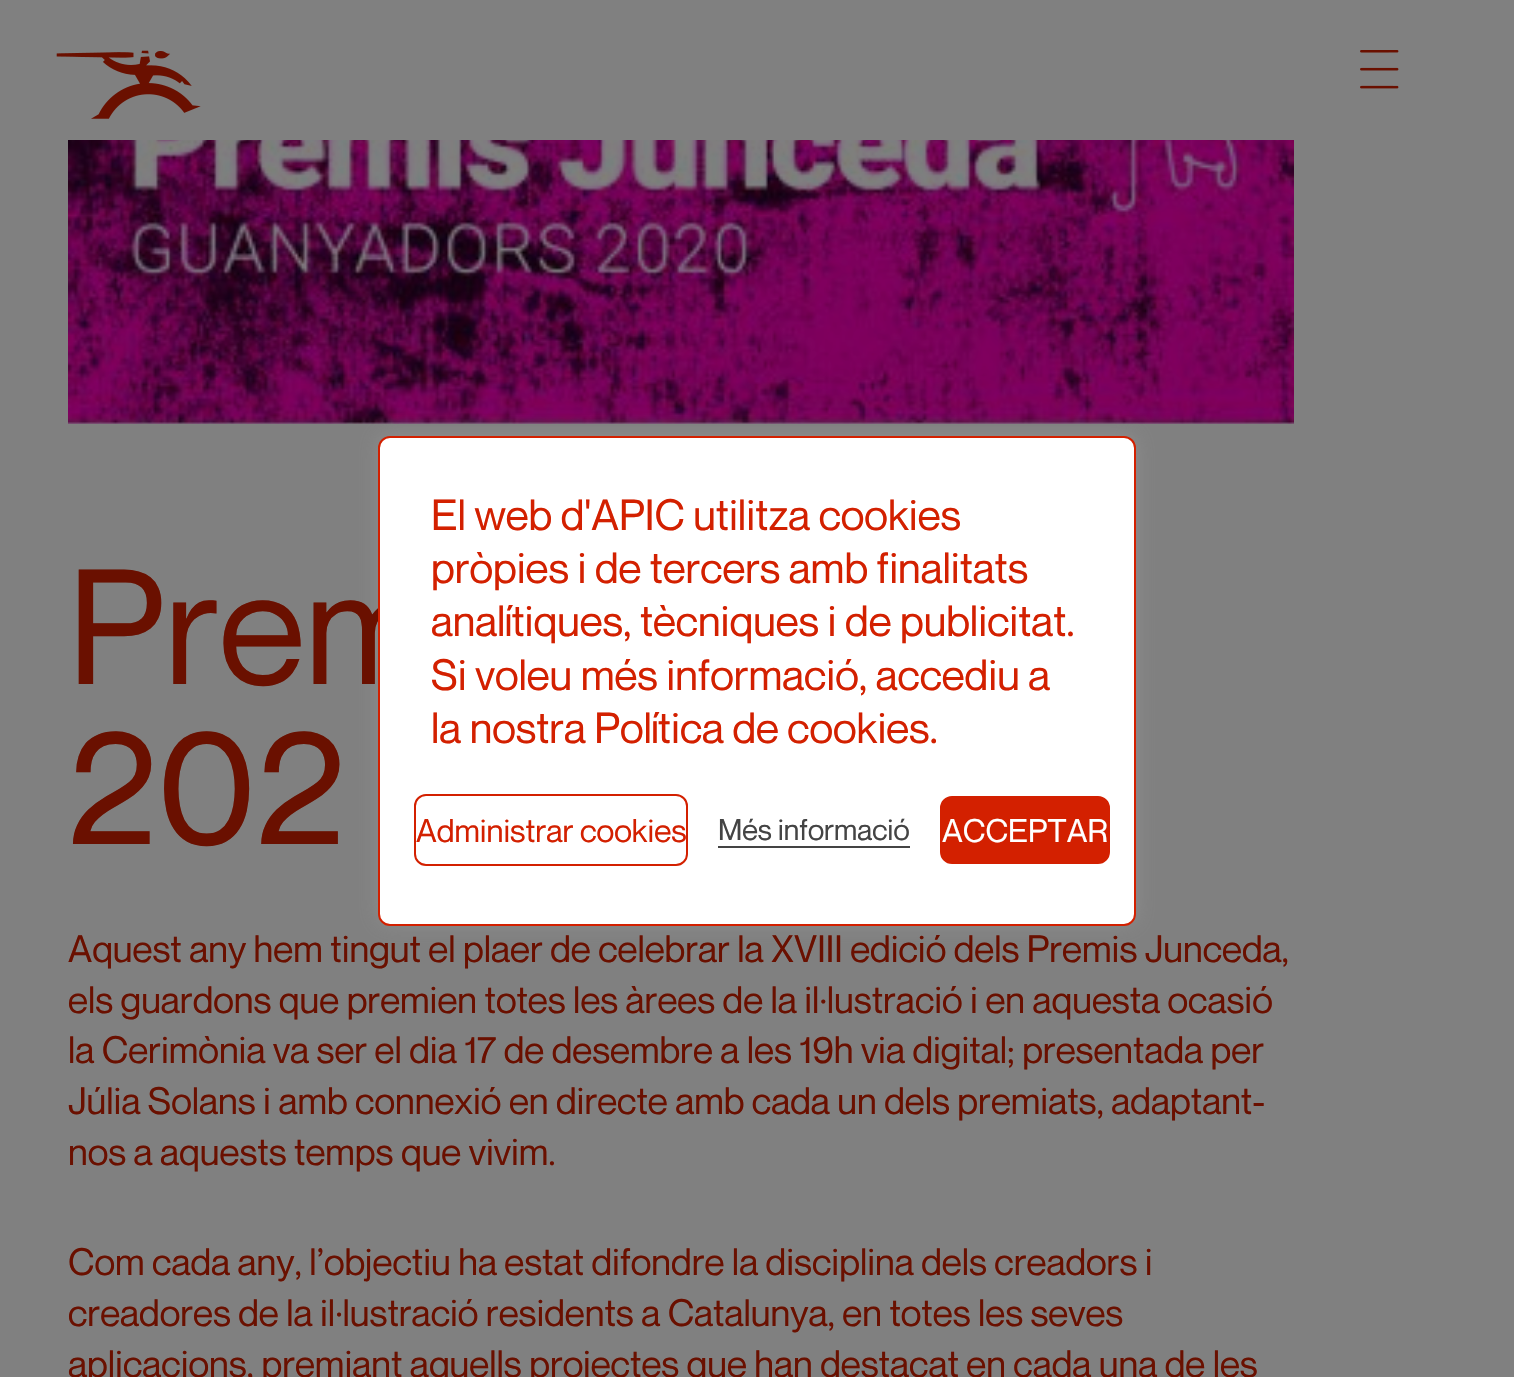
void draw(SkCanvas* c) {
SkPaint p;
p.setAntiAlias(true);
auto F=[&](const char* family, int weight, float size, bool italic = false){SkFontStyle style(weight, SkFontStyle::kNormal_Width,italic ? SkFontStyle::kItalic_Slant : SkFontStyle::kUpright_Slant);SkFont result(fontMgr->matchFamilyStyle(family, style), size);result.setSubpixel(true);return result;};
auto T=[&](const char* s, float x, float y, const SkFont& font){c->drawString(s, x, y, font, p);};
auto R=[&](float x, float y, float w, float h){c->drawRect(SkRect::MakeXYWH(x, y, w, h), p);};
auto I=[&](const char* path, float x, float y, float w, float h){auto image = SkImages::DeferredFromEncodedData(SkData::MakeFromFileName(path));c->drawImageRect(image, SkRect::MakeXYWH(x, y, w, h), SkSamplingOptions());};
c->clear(0xff808080);
I("3.png",68,140,1226,284);
p.setColor(0x4dacabab);
p.setMaskFilter(SkMaskFilter::MakeBlur(kNormal_SkBlurStyle, 10));
c->drawRoundRect(SkRect::MakeXYWH(378,434,758,490),12,12,p);
p.setMaskFilter(nullptr);
auto f1 = F("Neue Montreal",400,160);
p.setColor(0xff6a1000);
T("Prem",68,684,f1);
p.setColor(0xffffffff);
c->drawRoundRect(SkRect::MakeXYWH(379,437,756,488),11,11,p);
p.setStroke(true);
p.setStrokeWidth(2);
p.setColor(0xffd32000);
c->drawRoundRect(SkRect::MakeXYWH(379,437,756,488),11,11,p);
auto f2 = F("Neue Montreal",400,42.7);
p.setStroke(false);
T("El web d'APIC utilitza cookies",431,530,f2);
T("pròpies i de tercers amb finalitats",431,583,f2);
T("analítiques, tècniques i de publicitat.",431,636,f2);
T("Si voleu més informació, accediu a",431,690,f2);
T("la nostra Política de cookies.",431,743,f2);
p.setStroke(true);
c->drawRoundRect(SkRect::MakeXYWH(415,795,272,70),11,11,p);
auto f3 = F("Neue Montreal",400,32);
p.setStroke(false);
T("Administrar cookies",416,842,f3);
auto f4 = F("Neue Montreal",400,29.25);
p.setColor(0xff444444);
T("Més informació",718,840,f4);
R(718,846,192,2);
p.setColor(0xffd32000);
c->drawRoundRect(SkRect::MakeXYWH(941,797,168,66),11,11,p);
p.setStroke(true);
c->drawRoundRect(SkRect::MakeXYWH(941,797,168,66),11,11,p);
p.setStroke(false);
p.setColor(0xffffffff);
T("ACCEPTAR",942,842,f3);
I("1.png",56,50,145,69);
I("2.png",1360,50,39,39);
p.setColor(0xff6a1000);
T("202",68,844,f1);
auto f5 = F("Neue Montreal",400,37.3);
T("Aquest any hem tingut el plaer de celebrar la XVIII edició dels Premis Junceda,",68,962,f5);
T("els guardons que premien totes les àrees de la il·lustració i en aquesta ocasió",68,1013,f5);
T("la Cerimònia va ser el dia 17 de desembre a les 19 h via digital; presentada per",68,1063,f5);
T("Júlia Solans i amb connexió en directe amb cada un dels premiats, adaptant-",68,1114,f5);
T("nos a aquests temps que vivim.",68,1165,f5);
T("Com cada any, l’objectiu ha estat difondre la disciplina dels creadors i",68,1275,f5);
T("creadores de la il·lustració residents a Catalunya, en totes les seves",68,1326,f5);
T("aplicacions, premiant aquells projectes que han destacat en cada una de les",68,1377,f5);
}
